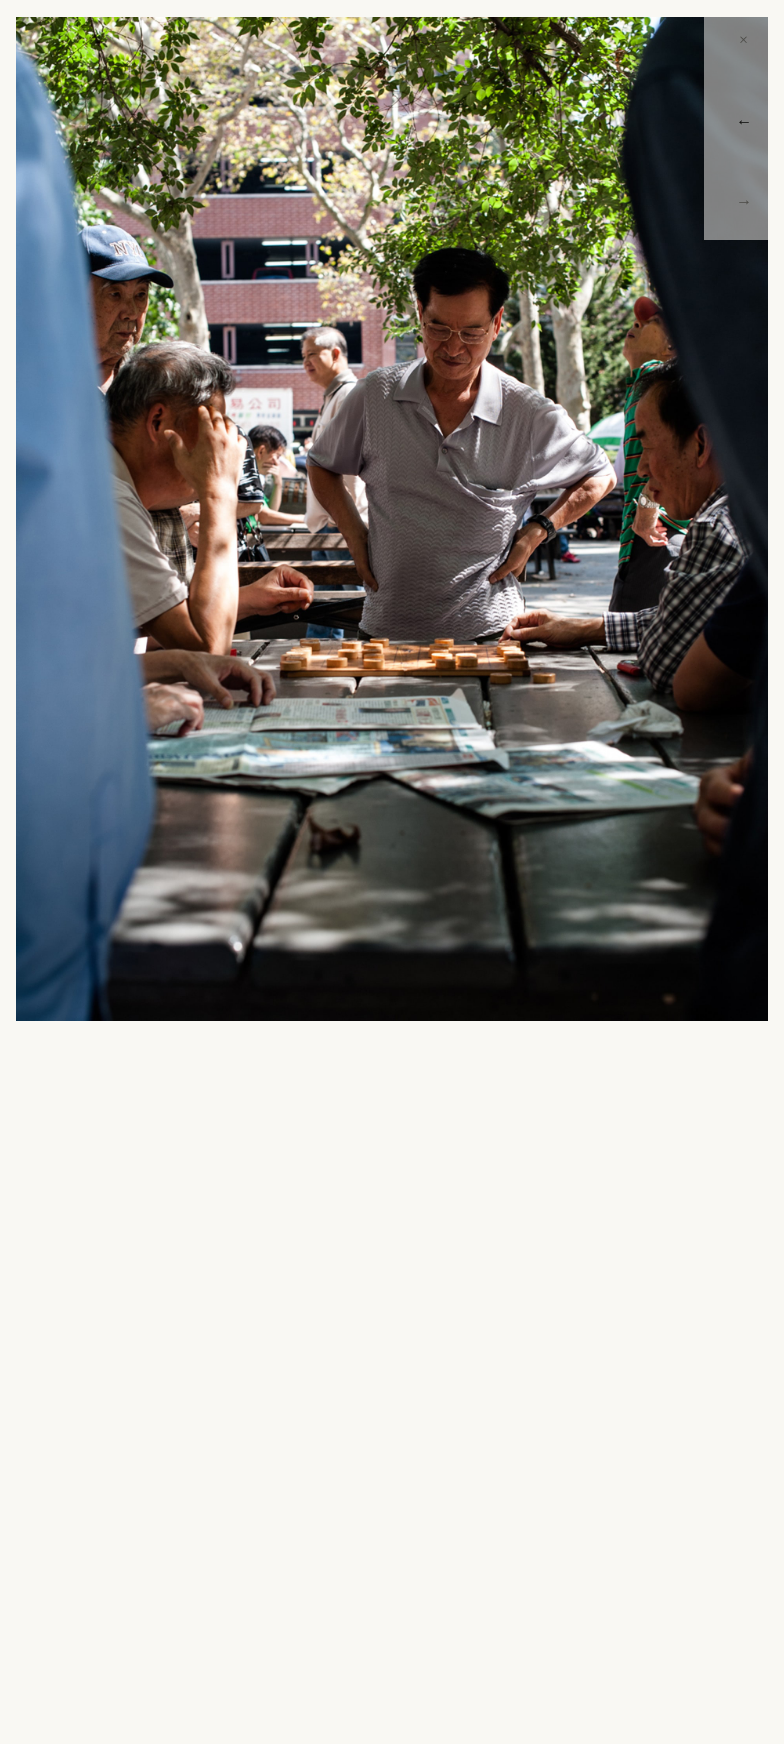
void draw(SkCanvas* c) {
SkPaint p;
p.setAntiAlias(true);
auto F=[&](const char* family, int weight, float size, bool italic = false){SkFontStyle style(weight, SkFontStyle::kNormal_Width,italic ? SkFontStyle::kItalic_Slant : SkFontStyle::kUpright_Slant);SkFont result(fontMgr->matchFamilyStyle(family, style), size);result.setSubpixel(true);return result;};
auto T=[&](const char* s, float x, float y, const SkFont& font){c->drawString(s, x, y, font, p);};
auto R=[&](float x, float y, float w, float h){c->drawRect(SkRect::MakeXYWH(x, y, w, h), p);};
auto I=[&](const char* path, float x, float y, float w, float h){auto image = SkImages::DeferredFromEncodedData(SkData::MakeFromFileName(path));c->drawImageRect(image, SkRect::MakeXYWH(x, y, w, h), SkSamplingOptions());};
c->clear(0xfff9f8f3);
I("1.png",16,17,752,1004);
p.setColor(0x80f9f8f3);
R(704,17,64,63);
auto f1 = F("Liberation Serif",400,16);
p.setColor(0xff4f4e4a);
T("×",739,45,f1);
p.setColor(0x80f9f8f3);
R(704,80,64,80);
p.setColor(0xff131312);
T("←",736,125,f1);
p.setColor(0x80f9f8f3);
R(704,160,64,80);
p.setColor(0xff4f4e4a);
T("→",736,205,f1);
}
